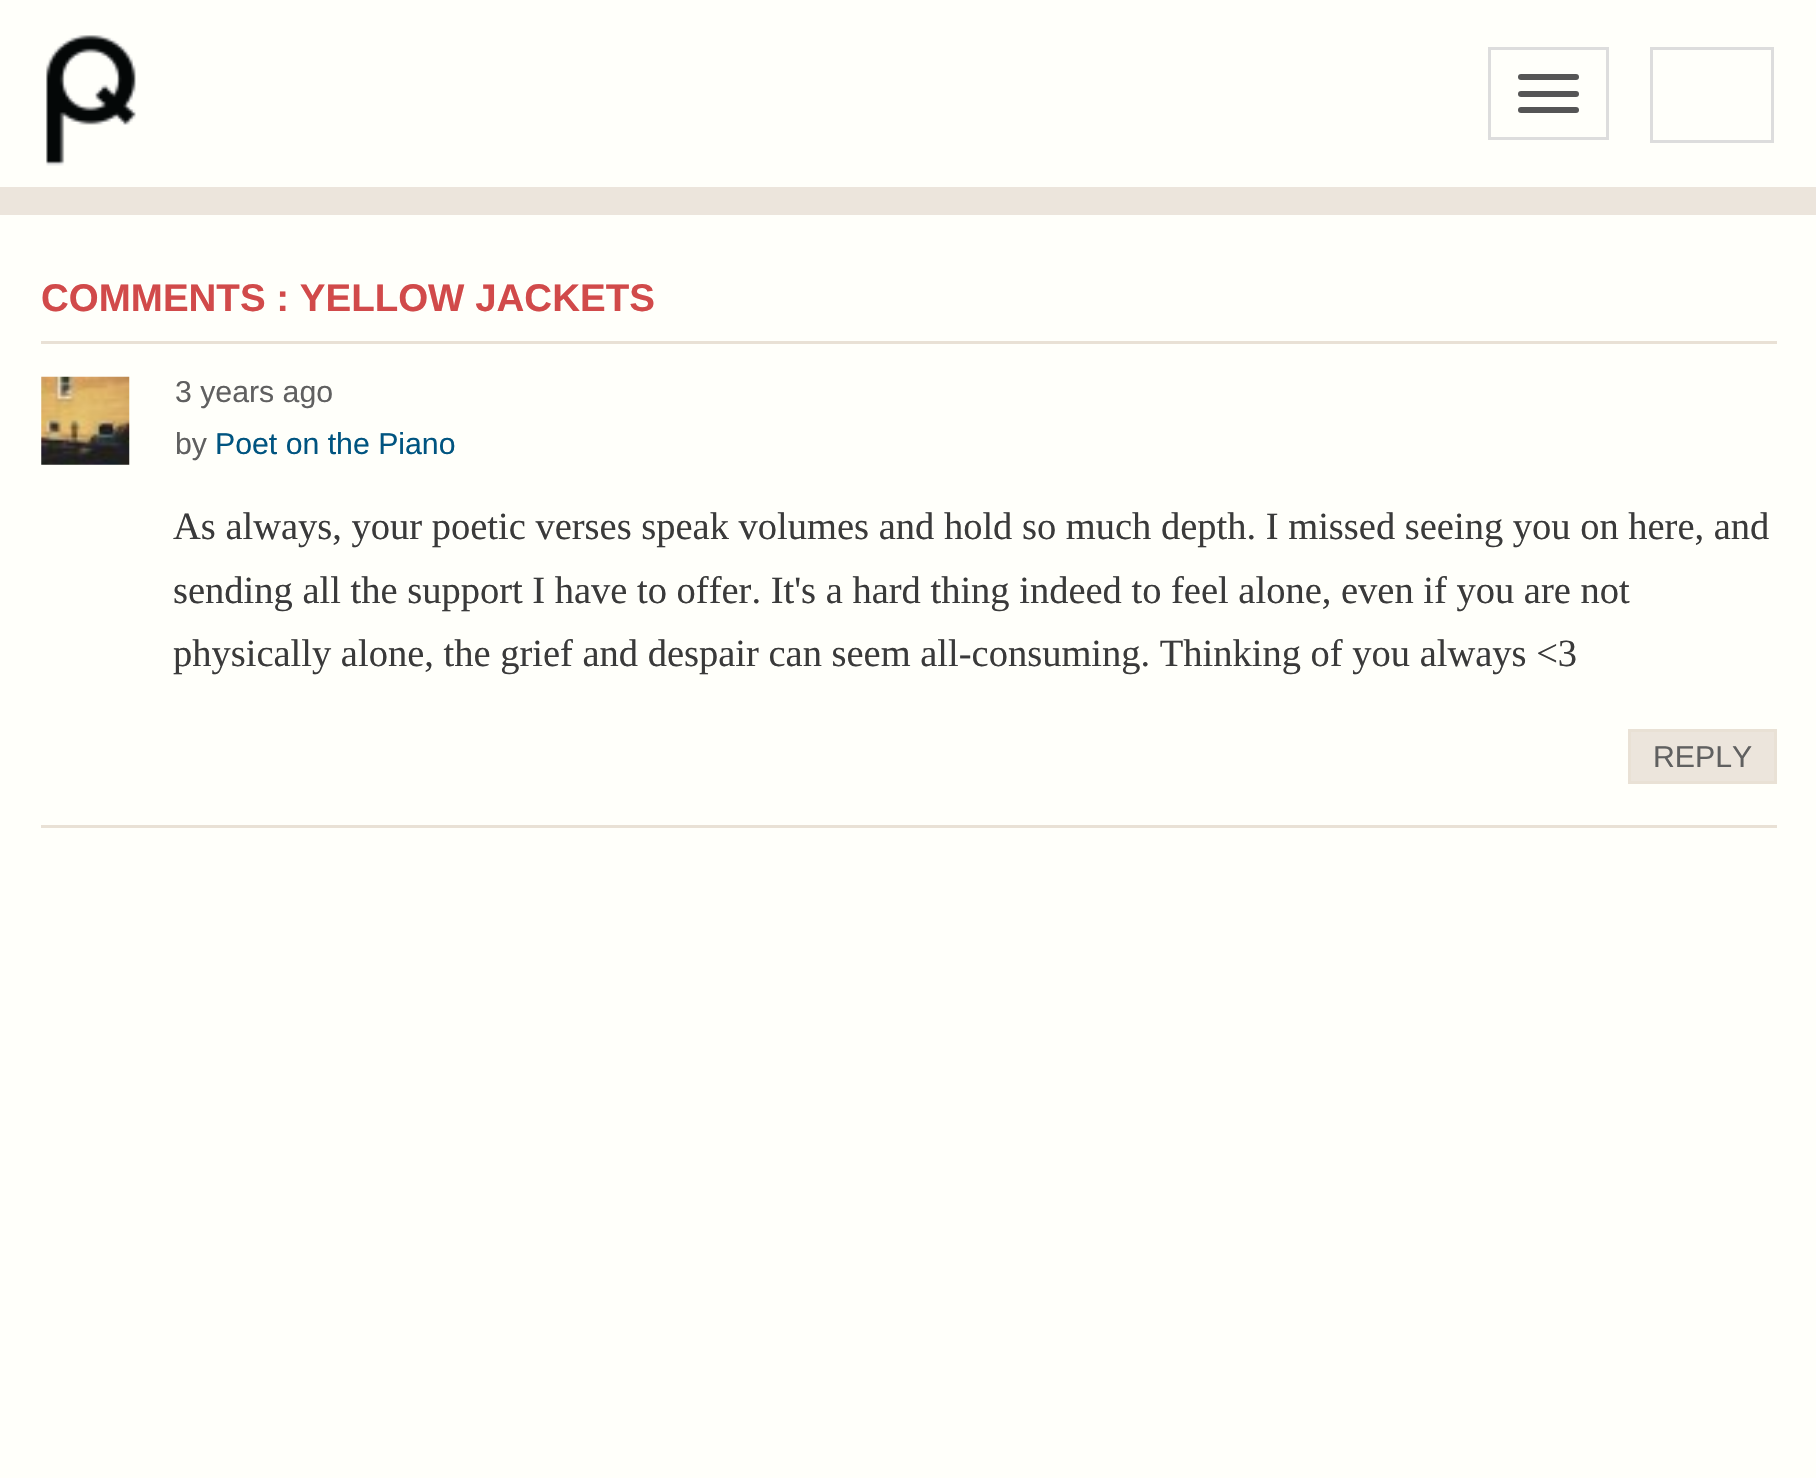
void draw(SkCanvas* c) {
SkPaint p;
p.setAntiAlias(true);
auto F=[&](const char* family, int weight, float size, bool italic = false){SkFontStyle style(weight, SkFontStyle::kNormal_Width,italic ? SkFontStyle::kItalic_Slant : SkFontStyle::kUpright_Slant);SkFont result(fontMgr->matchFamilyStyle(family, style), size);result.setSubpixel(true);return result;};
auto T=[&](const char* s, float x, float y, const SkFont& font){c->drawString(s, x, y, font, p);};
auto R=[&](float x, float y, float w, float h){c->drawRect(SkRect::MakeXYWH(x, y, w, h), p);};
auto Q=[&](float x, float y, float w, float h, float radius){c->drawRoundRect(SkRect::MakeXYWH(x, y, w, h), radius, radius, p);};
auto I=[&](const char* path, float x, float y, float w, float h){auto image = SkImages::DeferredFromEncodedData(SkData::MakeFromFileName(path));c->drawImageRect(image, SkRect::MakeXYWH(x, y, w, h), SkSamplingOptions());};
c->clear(0xffece5dc);
p.setColor(0xfffffffa);
R(0,0,1816,187);
I("1.png",46,35,90,131);
p.setStroke(true);
p.setStrokeWidth(3);
p.setColor(0xffdddddd);
c->drawRect(SkRect::MakeXYWH(1489.5,48.5,118,90),p);
p.setStroke(false);
p.setColor(0xff555555);
Q(1518,74,61,6,3);
Q(1518,91,61,6,3);
Q(1518,107,61,6,3);
p.setStroke(true);
p.setColor(0xffdddddd);
c->drawRect(SkRect::MakeXYWH(1651.5,48.5,121,93),p);
p.setStroke(false);
p.setColor(0xfffffffa);
R(0,215,1816,1263);
auto f1 = F("Liberation Sans",700,38.5);
p.setColor(0xffd14a4a);
T("COMMENTS : YELLOW JACKETS",41,311,f1);
p.setColor(0xffe9e1d5);
R(41,341,1736,3);
I("2.png",41,376,89,89);
auto f2 = F("Liberation Sans",400,30.25);
p.setColor(0xff606060);
T("3 years ago",175,402,f2);
T("by",175,454,f2);
p.setColor(0xff005480);
T("Poet on the Piano",215,454,f2);
auto f3 = F("Liberation Serif",400,38.5);
p.setColor(0xff3a3a3a);
T("As always, your poetic verses speak volumes and hold so much depth. I missed seeing you on here, and",173,539,f3);
T("sending all the support I have to offer. It's a hard thing indeed to feel alone, even if you are not",173,603,f3);
T("physically alone, the grief and despair can seem all-consuming. Thinking of you always <3",173,666,f3);
p.setColor(0xffece5dc);
c->drawRect(SkRect::MakeXYWH(1629.5,730.5,146,52),p);
p.setStroke(true);
p.setColor(0xffe9e1d5);
c->drawRect(SkRect::MakeXYWH(1629.5,730.5,146,52),p);
p.setStroke(false);
p.setColor(0xff606060);
T("REPLY",1653,767,f2);
p.setColor(0xffe9e1d5);
R(41,825,1736,3);
}
